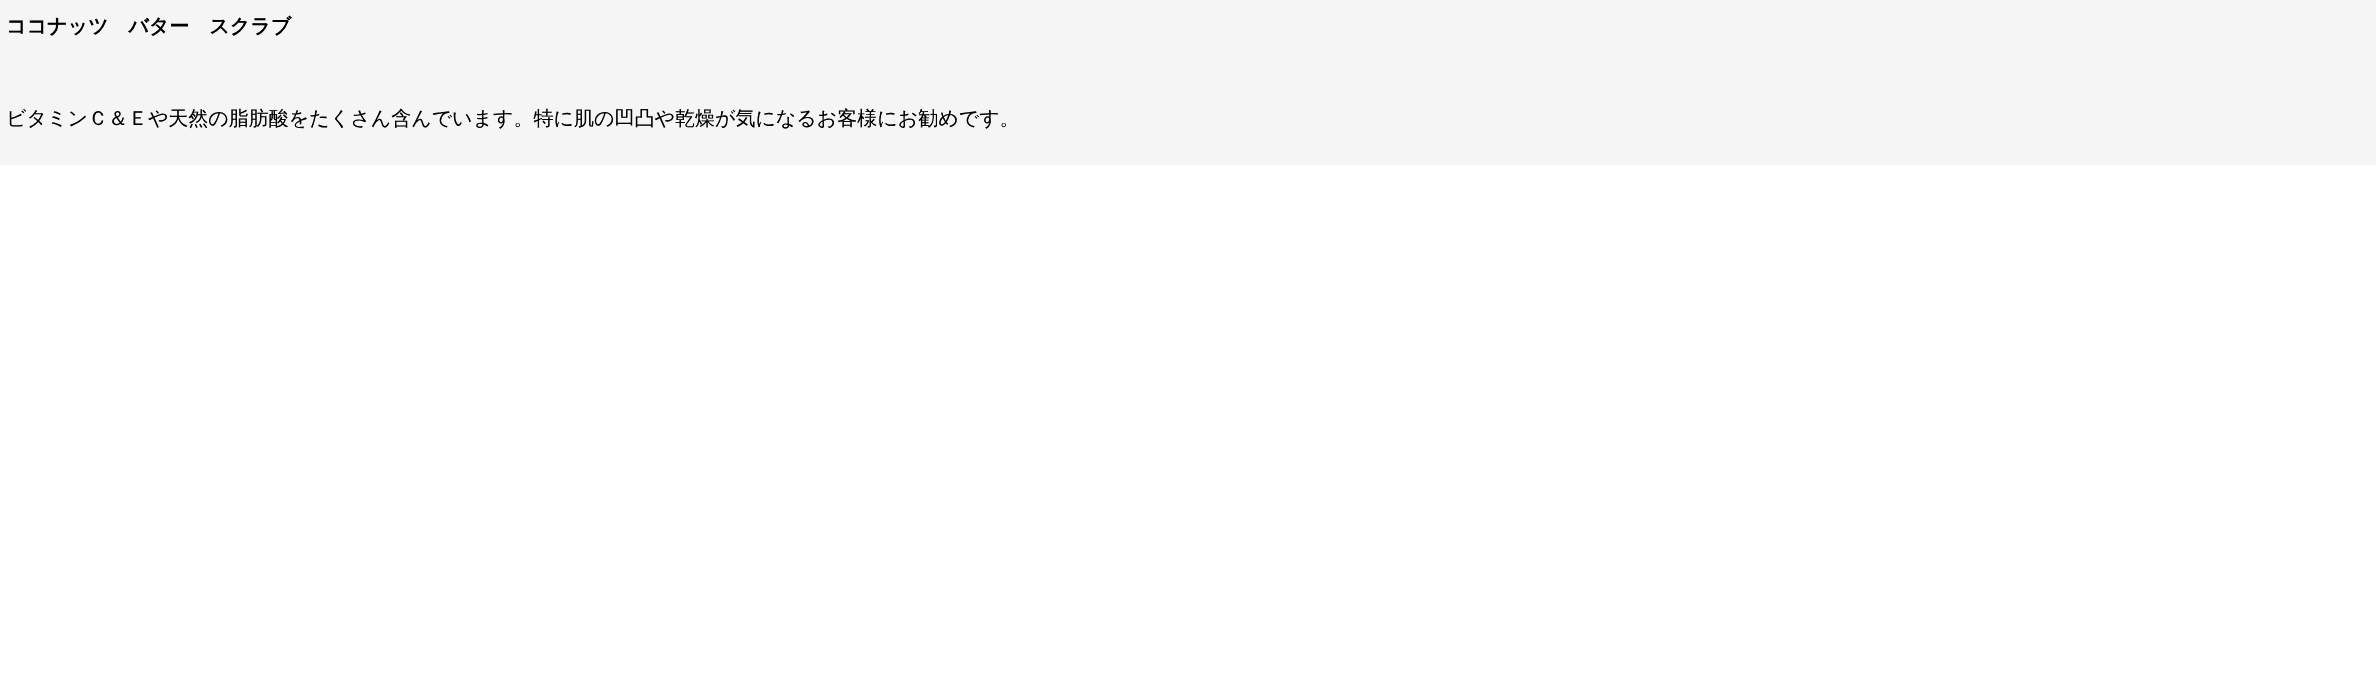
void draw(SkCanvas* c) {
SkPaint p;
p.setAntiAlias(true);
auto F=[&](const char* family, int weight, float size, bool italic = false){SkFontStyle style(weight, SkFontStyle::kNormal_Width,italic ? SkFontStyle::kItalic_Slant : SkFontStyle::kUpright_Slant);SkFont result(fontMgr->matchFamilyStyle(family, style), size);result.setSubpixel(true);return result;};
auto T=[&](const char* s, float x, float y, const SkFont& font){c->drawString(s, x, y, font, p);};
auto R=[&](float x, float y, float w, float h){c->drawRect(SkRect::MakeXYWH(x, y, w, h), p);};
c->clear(0xffffffff);
p.setColor(0xfff5f5f5);
R(0,0,2376,165);
auto f1 = F("WenQuanYi Zen Hei",700,20);
p.setColor(0xff000000);
T("ココナッツ　バター　スクラブ",6,33,f1);
auto f2 = F("WenQuanYi Zen Hei",500,20);
T("ビタミンＣ＆Ｅや天然の脂肪酸をたくさん含んでいます。特に肌の凹凸や乾燥が気になるお客様にお勧めです。",6,125,f2);
}
